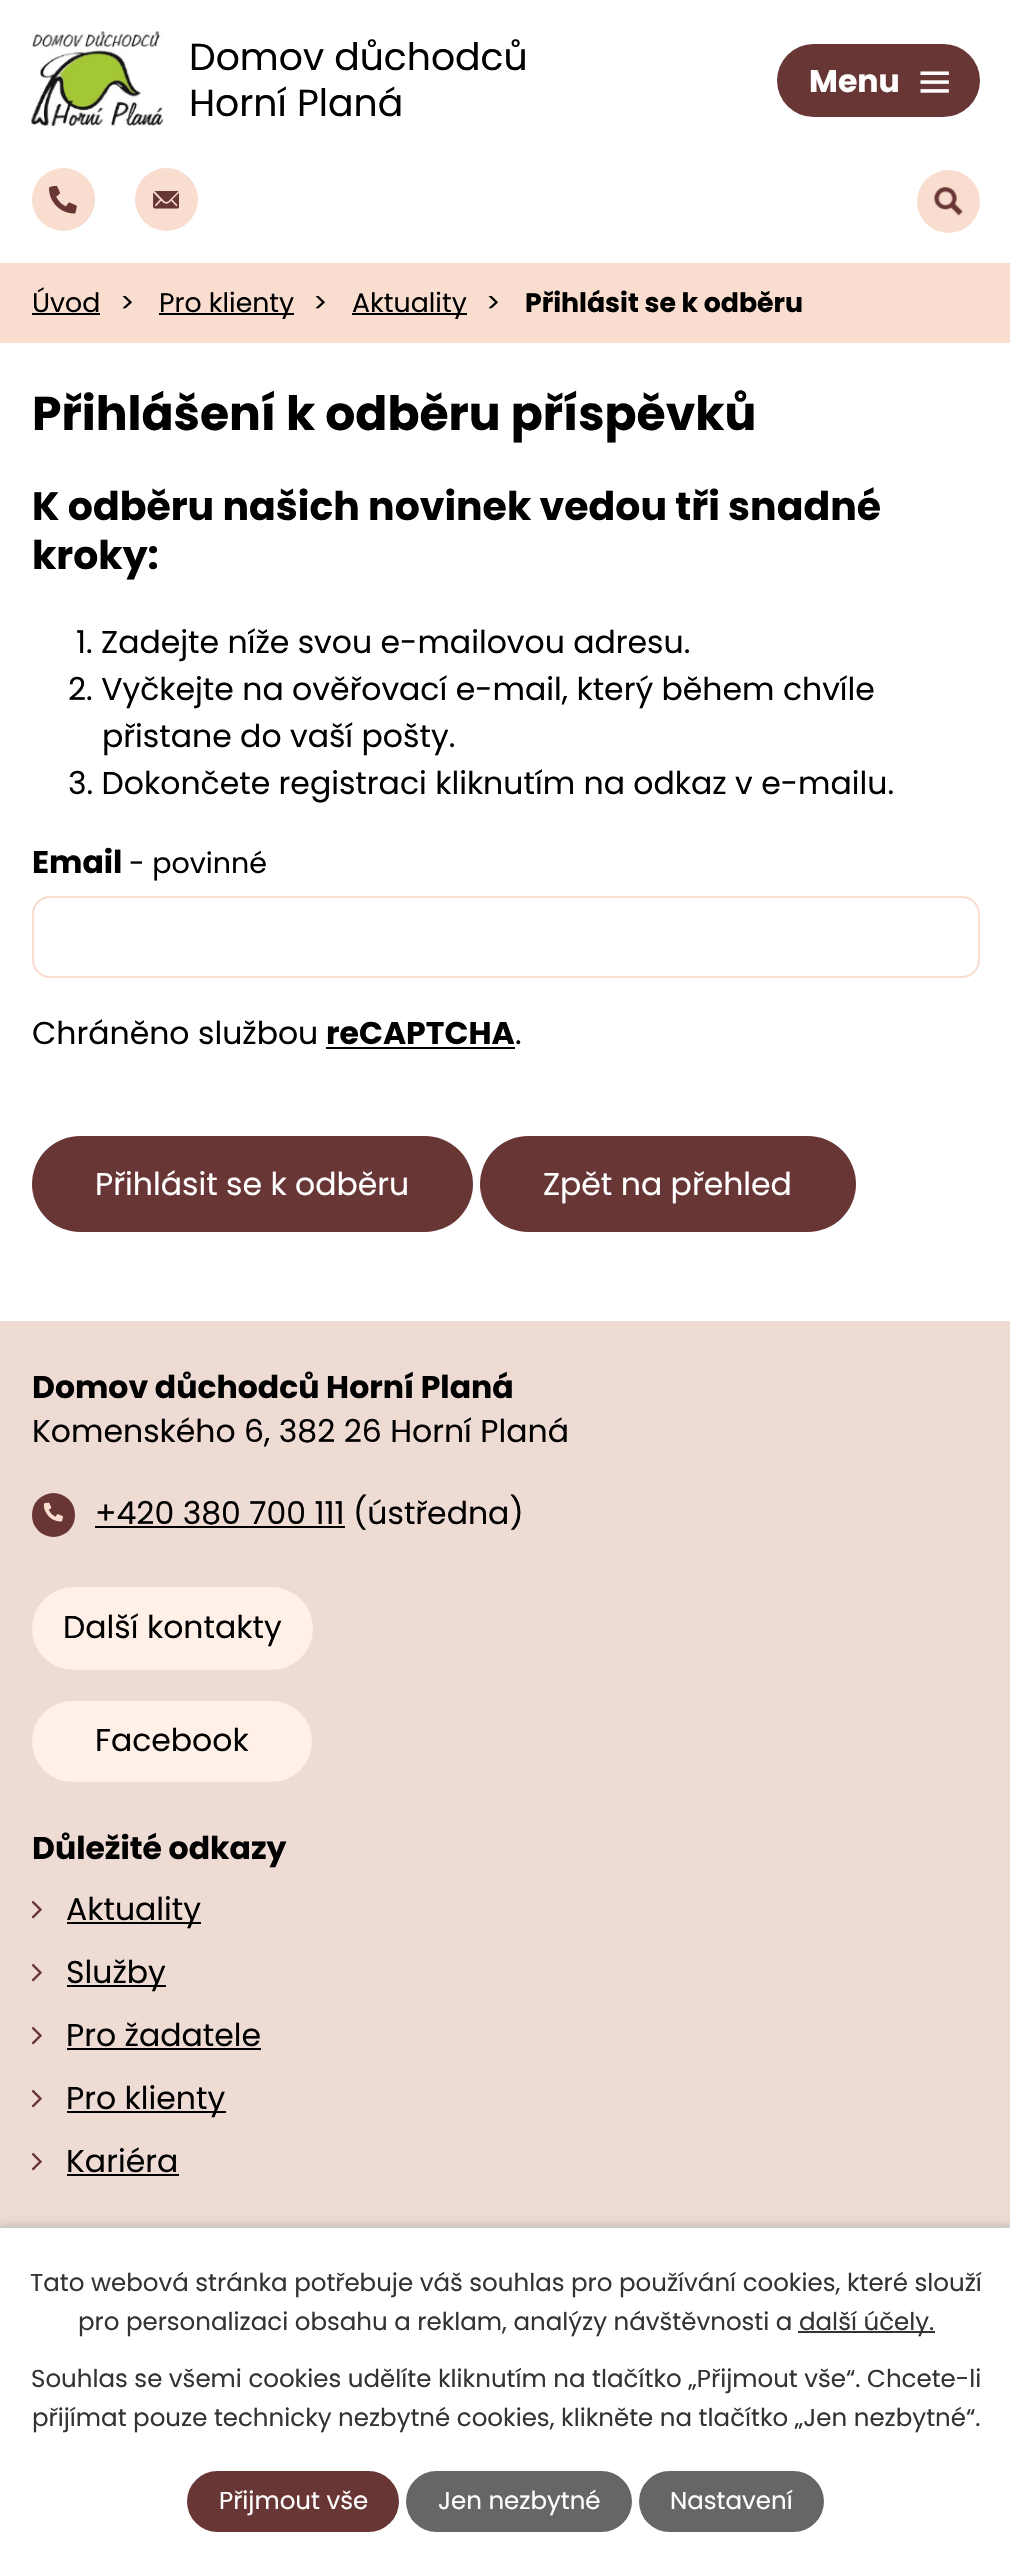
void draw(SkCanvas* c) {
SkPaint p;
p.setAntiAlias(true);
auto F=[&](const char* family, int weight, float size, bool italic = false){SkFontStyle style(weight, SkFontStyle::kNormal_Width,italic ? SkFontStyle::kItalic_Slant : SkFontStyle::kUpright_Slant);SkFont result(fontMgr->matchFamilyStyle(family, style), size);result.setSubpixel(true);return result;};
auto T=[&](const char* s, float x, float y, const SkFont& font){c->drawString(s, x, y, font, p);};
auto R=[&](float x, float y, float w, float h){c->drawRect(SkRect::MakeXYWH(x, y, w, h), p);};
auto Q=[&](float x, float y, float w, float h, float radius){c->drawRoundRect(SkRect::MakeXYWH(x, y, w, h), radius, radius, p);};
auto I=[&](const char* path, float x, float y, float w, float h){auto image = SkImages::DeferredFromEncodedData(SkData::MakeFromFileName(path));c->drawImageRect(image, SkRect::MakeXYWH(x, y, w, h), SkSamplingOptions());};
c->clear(0xffffffff);
I("1.png",31,31,132,95);
auto f1 = F("Poppins",400,37.75);
p.setColor(0xff000000);
T("Domov důchodců",189,70,f1);
T("Horní Planá",189,116,f1);
p.setColor(0xfff9ddcf);
c->drawCircle(63.5,199.5,31.5,p);
I("2.png",49,186,28,28);
c->drawCircle(166.5,199.5,31.5,p);
I("3.png",153,191,26,18);
c->drawCircle(948.5,201.5,31.5,p);
I("4.png",934,187,29,29);
p.setColor(0xff693636);
Q(777,44,203,73,36.5);
auto f2 = F("Poppins",700,31.5);
p.setColor(0xffffffff);
T("Menu",809,92,f2);
I("5.png",920,71,29,22);
p.setColor(0xfff9ddcf);
R(0,263,1010,80);
auto f3 = F("Poppins",400,26.75);
p.setColor(0xff000000);
T("Úvod",32,312,f3);
R(32,313,68,2);
T(">",120,312,f3);
R(159,313,135,2);
T("Pro klienty",159,312,f3);
T(">",313,312,f3);
R(352,313,115,2);
T("Aktuality",352,312,f3);
T(">",486,312,f3);
auto f4 = F("Poppins",700,26.75);
T("Přihlásit se k odběru",525,312,f4);
auto f5 = F("Poppins",700,47.25);
T("Přihlášení k odběru příspěvků",32,430,f5);
auto f6 = F("Poppins",700,39.4);
T("K odběru našich novinek vedou tři snadné",32,520,f6);
T("kroky:",32,569,f6);
auto f7 = F("Poppins",400,31.5);
T("1. Zadejte níže svou e-mailovou adresu.",76,653,f7);
T("2. Vyčkejte na ověřovací e-mail, který během chvíle",68,700,f7);
T("přistane do vaší pošty.",102,747,f7);
T("3. Dokončete registraci kliknutím na odkaz v e-mailu.",68,794,f7);
T("Email",32,873,f2);
auto f8 = F("Poppins",400,28.5);
T("- povinné",129,873,f8);
p.setStroke(true);
p.setStrokeWidth(2);
p.setColor(0xfff9ddcf);
c->drawRoundRect(SkRect::MakeXYWH(33,897,946,80),17,17,p);
p.setStroke(false);
p.setColor(0xff000000);
T("Chráněno službou",32,1044,f7);
T("reCAPTCHA",326,1044,f2);
R(326,1047,189,2);
T(".",515,1044,f7);
p.setColor(0xff693636);
Q(32,1136,441,96,48);
p.setColor(0xffffffff);
T("Přihlásit se k odběru",95,1195,f7);
p.setColor(0xff693636);
Q(480,1136,376,96,48);
p.setColor(0xffffffff);
T("Zpět na přehled",543,1195,f7);
p.setColor(0xffeedbd4);
R(0,1321,1010,905);
p.setColor(0xff000000);
T("Domov důchodců Horní Planá",32,1398,f2);
T("Komenského 6, 382 26 Horní Planá",32,1442,f7);
p.setColor(0xff693636);
Q(32,1493,43,44,21.5);
I("6.png",44,1502,19,20);
p.setColor(0xff000000);
T("+420 380 700 111",95,1524,f7);
R(95,1526,250,2);
T("(ústředna)",353,1524,f7);
p.setColor(0xfffff0e8);
Q(32,1587,281,83,41.5);
p.setColor(0xff000000);
T("Další kontakty",63,1638,f7);
p.setColor(0xfffff0e8);
Q(32,1701,280,81,40.5);
p.setColor(0xff000000);
T("Facebook",95,1751,f7);
T("Důležité odkazy",32,1859,f2);
I("7.png",31,1900,11,19);
R(67,1922,134,2);
T("Aktuality",66,1920,f7);
I("7.png",31,1963,11,19);
R(67,1985,99,2);
T("Služby",66,1983,f7);
I("7.png",31,2026,11,19);
T("Pro žadatele",66,2046,f7);
R(67,2048,194,2);
I("8.png",31,2089,11,19);
R(67,2111,159,2);
T("Pro klienty",66,2109,f7);
I("8.png",31,2152,11,19);
T("Kariéra",66,2172,f7);
R(67,2174,112,2);
p.setColor(0x33000000);
p.setMaskFilter(SkMaskFilter::MakeBlur(kNormal_SkBlurStyle, 4.5));
c->drawRect(SkRect::MakeXYWH(0,2226,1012,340),p);
p.setMaskFilter(nullptr);
p.setColor(0xffffffff);
R(0,2228,1010,336);
p.setColor(0xffcccccc);
R(0,2226,1010,2);
auto f9 = F("Poppins",400,24.5);
p.setColor(0xff333333);
T("Tato webová stránka potřebuje váš souhlas pro používání cookies, které slouží",30,2291,f9);
T("pro personalizaci obsahu a reklam, analýzy návštěvnosti a",78,2330,f9);
R(798,2331,137,2);
T("další účely.",799,2330,f9);
T("Souhlas se všemi cookies udělíte kliknutím na tlačítko „Přijmout vše“. Chcete-li",31,2387,f9);
T("přijímat pouze technicky nezbytné cookies, klikněte na tlačítko „Jen nezbytné“.",32,2426,f9);
p.setColor(0xff693636);
Q(187,2471,212,61,30.5);
p.setColor(0xffffffff);
T("Přijmout vše",219,2509,f9);
p.setColor(0xff666666);
Q(406,2471,226,61,30.5);
p.setColor(0xffffffff);
T("Jen nezbytné",438,2509,f9);
p.setColor(0xff666666);
Q(639,2471,185,61,30.5);
p.setColor(0xffffffff);
T("Nastavení",670,2509,f9);
}
